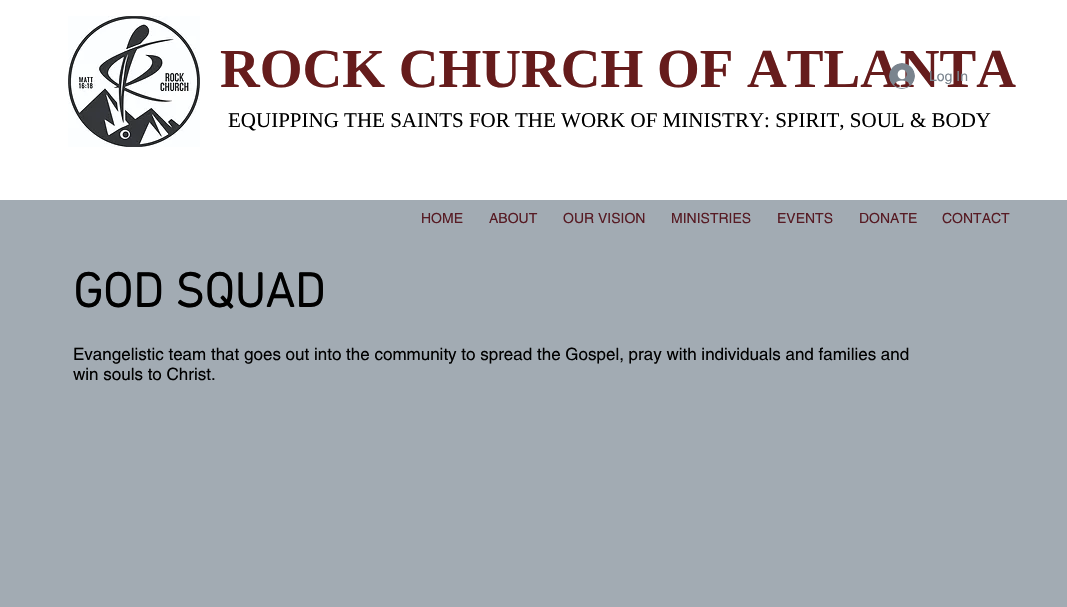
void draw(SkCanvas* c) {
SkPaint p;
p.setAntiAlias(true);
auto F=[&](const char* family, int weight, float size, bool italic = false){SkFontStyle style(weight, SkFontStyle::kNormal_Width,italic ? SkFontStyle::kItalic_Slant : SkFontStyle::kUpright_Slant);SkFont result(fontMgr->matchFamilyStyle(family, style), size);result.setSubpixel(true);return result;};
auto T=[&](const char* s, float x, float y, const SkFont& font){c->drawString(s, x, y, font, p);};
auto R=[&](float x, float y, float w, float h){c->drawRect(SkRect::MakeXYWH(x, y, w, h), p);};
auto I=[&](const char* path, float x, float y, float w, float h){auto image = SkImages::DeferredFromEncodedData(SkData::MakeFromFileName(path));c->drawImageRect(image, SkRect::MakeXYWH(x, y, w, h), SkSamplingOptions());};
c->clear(0xffa2abb3);
p.setColor(0xffffffff);
R(0,0,1067,200);
I("1.png",68,16,132,131);
auto f1 = F("Liberation Serif",700,55);
p.setColor(0xff661c1c);
T("ROCK CHURCH OF ATLANTA",220,87,f1);
I("2.png",889,63,26,26);
auto f2 = F("helvetica",400,14);
p.setColor(0xff7a848e);
T("Log In",929,81,f2);
auto f3 = F("Liberation Serif",400,21);
p.setColor(0xff000000);
T("EQUIPPING THE SAINTS FOR THE WORK OF MINISTRY: SPIRIT, SOUL & BODY",228,127,f3);
p.setColor(0xff571b24);
T("HOME",421,223,f2);
T("ABOUT",489,223,f2);
T("OUR VISION",563,223,f2);
T("MINISTRIES",671,223,f2);
T("EVENTS",777,223,f2);
T("DONATE",859,223,f2);
T("CONTACT",942,223,f2);
auto f4 = F("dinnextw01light",700,49);
p.setColor(0xff000000);
T("GOD SQUAD",73,307,f4);
auto f5 = F("helvetica",400,17);
T("Evangelistic team that goes out into the community to spread the Gospel, pray with individuals and families and",73,360,f5);
T("win souls to Christ.",73,380,f5);
}
